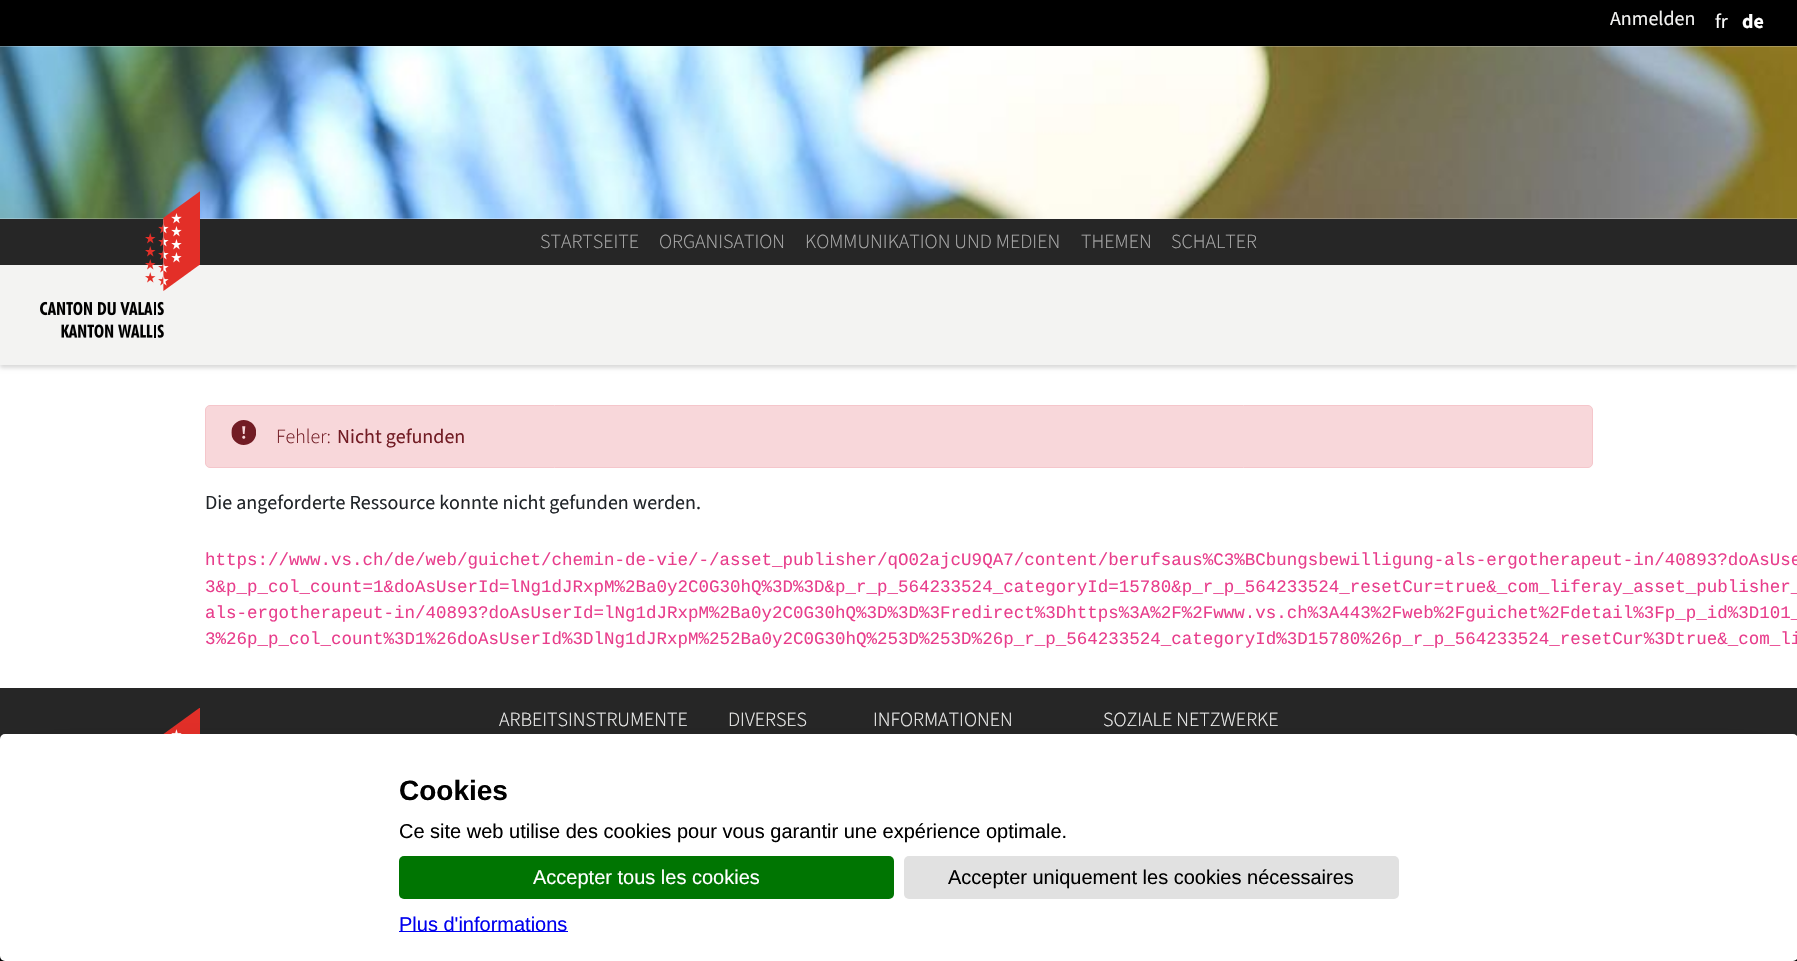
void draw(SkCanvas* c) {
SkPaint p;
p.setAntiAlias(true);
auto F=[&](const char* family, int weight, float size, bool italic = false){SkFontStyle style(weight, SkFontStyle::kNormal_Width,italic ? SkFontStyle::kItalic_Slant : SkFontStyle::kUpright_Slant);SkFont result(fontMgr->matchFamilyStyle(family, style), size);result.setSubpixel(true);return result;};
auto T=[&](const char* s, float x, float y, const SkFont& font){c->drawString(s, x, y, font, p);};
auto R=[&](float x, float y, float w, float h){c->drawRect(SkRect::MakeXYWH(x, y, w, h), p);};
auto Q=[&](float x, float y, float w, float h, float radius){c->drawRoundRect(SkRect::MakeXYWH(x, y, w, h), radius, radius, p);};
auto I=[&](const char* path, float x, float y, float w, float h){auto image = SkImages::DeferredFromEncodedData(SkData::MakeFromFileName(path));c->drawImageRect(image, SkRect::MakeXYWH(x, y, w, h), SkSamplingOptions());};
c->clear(0xffffffff);
p.setColor(0xff000000);
R(0,0,1797,46);
auto f1 = F("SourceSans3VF",400,20);
p.setColor(0xfff3f3f2);
T("Anmelden",1610,25,f1);
p.setColor(0xffffffff);
T("fr",1715,28,f1);
auto f2 = F("SourceSans3VF",700,20);
T("de",1742,28,f2);
I("1.png",0,46,1797,173);
p.setColor(0xff262626);
R(0,219,1797,46);
p.setColor(0x26000000);
p.setMaskFilter(SkMaskFilter::MakeBlur(kNormal_SkBlurStyle, 2));
c->drawRect(SkRect::MakeXYWH(0,268,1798,100),p);
p.setMaskFilter(nullptr);
p.setColor(0xfff3f3f2);
R(0,265,1797,100);
I("2.png",40,191,160,147);
auto f3 = F("SourceSans3VF",300,20);
p.setColor(0xffaaaaaa);
T("STARTSEITE",540,248,f3);
T("ORGANISATION",659,248,f3);
T("KOMMUNIKATION UND MEDIEN",805,248,f3);
T("THEMEN",1081,248,f3);
T("SCHALTER",1171,248,f3);
p.setColor(0xfff8d7da);
c->drawRoundRect(SkRect::MakeXYWH(205.5,405.5,1387,62),4.5,4.5,p);
p.setStroke(true);
p.setStrokeWidth(1);
p.setColor(0xfff5c6cb);
c->drawRoundRect(SkRect::MakeXYWH(205.5,405.5,1387,62),4.5,4.5,p);
I("3.png",231,420,25,25);
p.setStroke(false);
p.setColor(0xff721c24);
T("Fehler:",276,443,f3);
T("Nicht gefunden",337,443,f1);
p.setColor(0xff212529);
T("Die angeforderte Ressource konnte nicht gefunden werden.",205,509,f1);
auto f4 = F("Liberation Mono",400,17.5);
p.setColor(0xffe83e8c);
T("https://www.vs.ch/de/web/guichet/chemin-de-vie/-/asset_publisher/qO02ajcU9QA7/content/berufsaus%C3%BCbungsbewilligung-als-ergotherapeut-in/40893?doAsUse",205,565,f4);
T("3&p_p_col_count=1&doAsUserId=lNg1dJRxpM%2Ba0y2C0G30hQ%3D%3D&p_r_p_564233524_categoryId=15780&p_r_p_564233524_resetCur=true&_com_liferay_asset_publisher_",205,592,f4);
T("als-ergotherapeut-in/40893?doAsUserId=lNg1dJRxpM%2Ba0y2C0G30hQ%3D%3D%3Fredirect%3Dhttps%3A%2F%2Fwww.vs.ch%3A443%2Fweb%2Fguichet%2Fdetail%3Fp_p_id%3D101_",205,618,f4);
T("3%26p_p_col_count%3D1%26doAsUserId%3DlNg1dJRxpM%252Ba0y2C0G30hQ%253D%253D%26p_r_p_564233524_categoryId%3D15780%26p_r_p_564233524_resetCur%3Dtrue&_com_li",205,644,f4);
p.setColor(0xff262626);
R(0,688,1797,51);
I("4.png",163,708,37,26);
p.setColor(0xfff3f3f2);
T("ARBEITSINSTRUMENTE",499,726,f3);
T("DIVERSES",728,726,f3);
T("INFORMATIONEN",873,726,f3);
T("SOZIALE NETZWERKE",1103,726,f3);
p.setColor(0xff000000);
R(0,956,1797,5);
p.setColor(0x40000000);
p.setMaskFilter(SkMaskFilter::MakeBlur(kNormal_SkBlurStyle, 31));
c->drawRect(SkRect::MakeXYWH(15,780,1768,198),p);
p.setMaskFilter(nullptr);
p.setColor(0xffffffff);
Q(0,734,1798,227,5);
auto f5 = F("Liberation Sans",700,28);
p.setColor(0xff000000);
T("Cookies",399,800,f5);
auto f6 = F("Liberation Sans",400,20);
T("Ce site web utilise des cookies pour vous garantir une expérience optimale.",399,838,f6);
p.setColor(0xff007502);
Q(399,856,495,43,5);
p.setColor(0xffffffff);
T("Accepter tous les cookies",533,884,f6);
p.setColor(0xffe1e1e1);
Q(904,856,495,43,5);
p.setColor(0xff000000);
T("Accepter uniquement les cookies nécessaires",948,884,f6);
p.setColor(0xff0000ee);
R(399,931,169,1);
T("Plus d'informations",399,931,f6);
}
